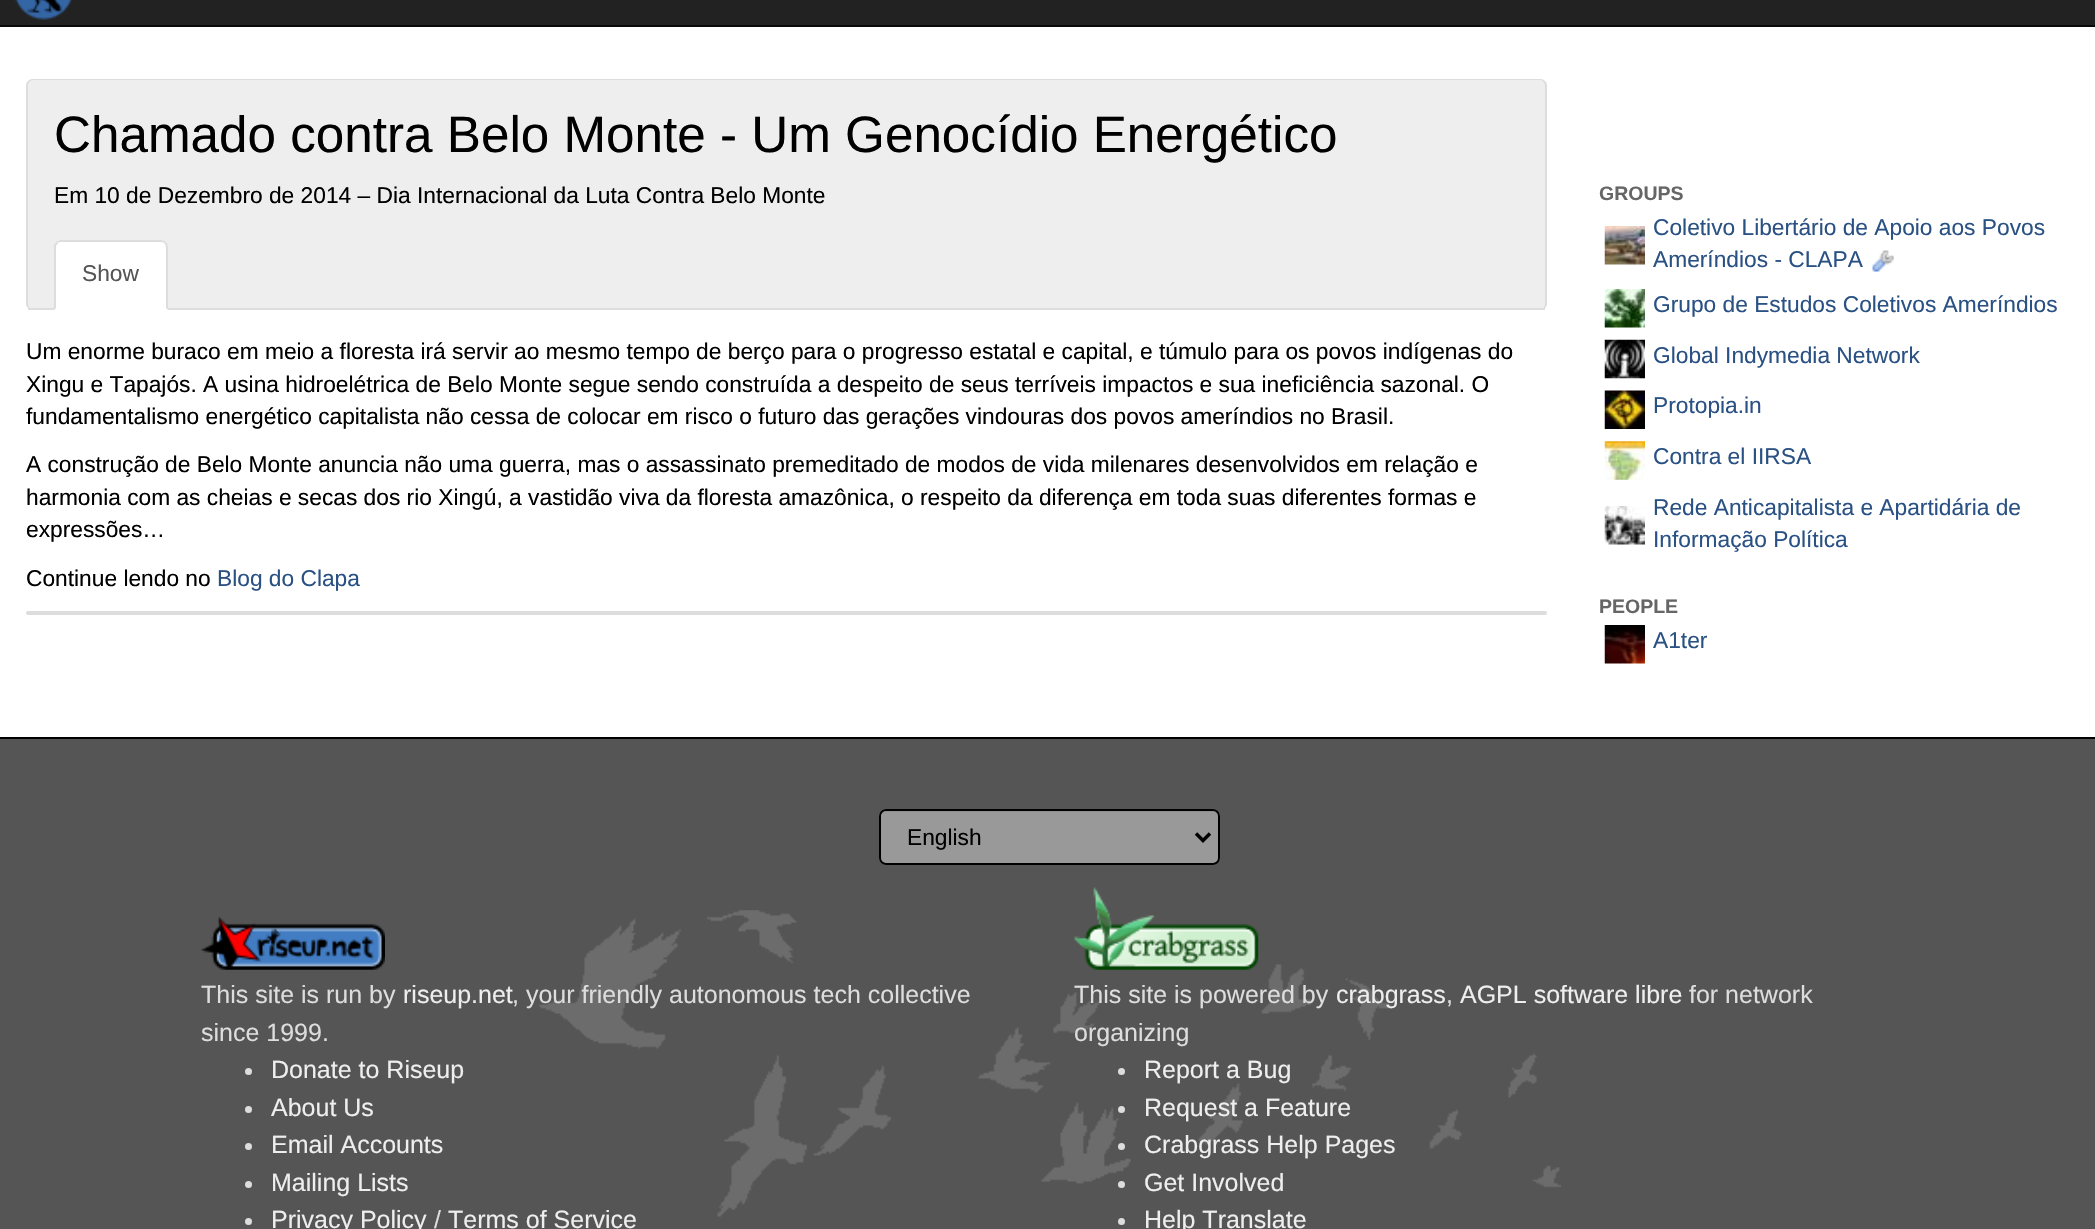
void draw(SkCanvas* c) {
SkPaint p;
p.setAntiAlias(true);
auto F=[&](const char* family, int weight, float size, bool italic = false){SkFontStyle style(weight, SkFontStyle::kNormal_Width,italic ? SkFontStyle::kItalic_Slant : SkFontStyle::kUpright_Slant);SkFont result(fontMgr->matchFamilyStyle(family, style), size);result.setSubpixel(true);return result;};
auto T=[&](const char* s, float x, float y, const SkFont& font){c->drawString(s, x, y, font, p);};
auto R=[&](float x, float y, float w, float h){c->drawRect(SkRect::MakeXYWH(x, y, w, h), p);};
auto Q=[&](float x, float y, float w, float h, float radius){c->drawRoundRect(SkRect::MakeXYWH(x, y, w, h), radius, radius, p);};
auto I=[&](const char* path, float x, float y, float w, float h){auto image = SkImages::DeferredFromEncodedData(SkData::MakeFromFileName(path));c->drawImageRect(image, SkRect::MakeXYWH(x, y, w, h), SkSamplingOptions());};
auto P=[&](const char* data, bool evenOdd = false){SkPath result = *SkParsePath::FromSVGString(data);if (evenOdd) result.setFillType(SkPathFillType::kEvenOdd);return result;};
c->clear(0xff555555);
p.setColor(0xff222222);
R(0,0,2095,25);
p.setColor(0xff090909);
R(0,25,2095,2);
I("1.png",15,0,57,20);
p.setColor(0xffffffff);
R(0,27,2095,710);
p.setColor(0xff000000);
R(0,737,2095,2);
p.setColor(0xffeeeeee);
Q(26,79,1521,231,7);
p.setColor(0xffdddddd);
c->drawPath(P("M33 79h1507c4 0 7 3 7 7v217c0 4-3 7-7 7h-1507c-4 0-7-3-7-7v-217c0-4 3-7 7-7zm0 1h1507c3 0 5 3 5 6v217c0 4-2 7-5 7h-1507c-3 0-5-3-5-7v-217c0-3 2-6 5-6z",true),p);
auto f1 = F("Liberation Sans",400,51.2);
p.setColor(0xff000000);
T("Chamado contra Belo Monte - Um Genocídio Energético",54,152,f1);
auto f2 = F("Liberation Sans",400,22.75);
T("Em 10 de Dezembro de 2014 – Dia Internacional da Luta Contra Belo Monte",54,203,f2);
p.setColor(0xffdddddd);
R(28,308,1517,2);
p.setColor(0xffffffff);
c->drawPath(P("M61 240h100c4 0 7 3 7 7v63h-114v-63c0-4 3-7 7-7z"),p);
p.setColor(0xffdddddd);
c->drawPath(P("M61 240c-2 0-4 1-5 2l2 1c0-1 2-1 3-1h100c1 0 3 0 3 1l2-1c-1-1-3-2-5-2z"),p);
c->drawPath(P("M166 242c1 1 2 3 2 5v63l-2-2v-61c0-2-1-3-2-4z"),p);
c->drawPath(P("M54 310l2-2v-62l2-3l-2-1l-2 3z"),p);
p.setColor(0xff555555);
T("Show",82,281,f2);
p.setColor(0xff000000);
T("Um enorme buraco em meio a floresta irá servir ao mesmo tempo de berço para o progresso estatal e capital, e túmulo para os povos indígenas do",26,359,f2);
T("Xingu e Tapajós. A usina hidroelétrica de Belo Monte segue sendo construída a despeito de seus terríveis impactos e sua ineficiência sazonal. O",26,392,f2);
T("fundamentalismo energético capitalista não cessa de colocar em risco o futuro das gerações vindouras dos povos ameríndios no Brasil.",26,424,f2);
T("A construção de Belo Monte anuncia não uma guerra, mas o assassinato premeditado de modos de vida milenares desenvolvidos em relação e",26,472,f2);
T("harmonia com as cheias e secas dos rio Xingú, a vastidão viva da floresta amazônica, o respeito da diferença em toda suas diferentes formas e",26,505,f2);
T("expressões…",26,537,f2);
T("Continue lendo no",26,586,f2);
p.setColor(0xff2a5183);
T("Blog do Clapa",217,586,f2);
p.setColor(0xffdddddd);
Q(26,611,1521,4,2);
auto f3 = F("Liberation Sans",700,19.5);
p.setColor(0xff666666);
T("GROUPS",1599,200,f3);
I("2.png",1604,226,41,39);
p.setColor(0xff2a5183);
T("Coletivo Libertário de Apoio aos Povos",1653,235,f2);
T("Ameríndios - CLAPA",1653,267,f2);
I("3.png",1872,250,22,22);
I("4.png",1604,289,41,39);
T("Grupo de Estudos Coletivos Ameríndios",1653,312,f2);
I("5.png",1604,339,41,40);
T("Global Indymedia Network",1653,363,f2);
I("6.png",1604,390,41,39);
T("Protopia.in",1653,413,f2);
I("7.png",1604,441,41,39);
T("Contra el IIRSA",1653,464,f2);
I("8.png",1604,506,41,39);
T("Rede Anticapitalista e Apartidária de",1653,515,f2);
T("Informação Política",1653,547,f2);
p.setColor(0xff666666);
T("PEOPLE",1599,613,f3);
I("9.png",1604,625,41,39);
p.setColor(0xff2a5183);
T("A1ter",1653,648,f2);
I("10.png",539,910,1022,307);
p.setColor(0xff999999);
Q(879,809,341,56,7);
p.setColor(0xff8e8e8e);
c->drawPath(P("M886 812h327c3 0 5 2 5 5v-2c0-3-2-5-5-5h-328c-3 0-5 2-5 5v2c0-3 3-5 6-5z"),p);
p.setStroke(true);
p.setStrokeWidth(2);
p.setColor(0xff000000);
c->drawRoundRect(SkRect::MakeXYWH(880,810,339,54),6,6,p);
p.setStrokeWidth(3.5);
c->drawPath(P("M1196 833.5l7 7l7-7"),p);
p.setStroke(false);
T("English",907,845,f2);
I("11.png",201,917,184,53);
auto f4 = F("Liberation Sans",400,25);
p.setColor(0xffdddddd);
T("This site is run by",201,1003,f4);
p.setColor(0xffeeeeee);
T("riseup.net",403,1003,f4);
p.setColor(0xffdddddd);
T(", your friendly autonomous tech collective",512,1003,f4);
T("since 1999.",201,1041,f4);
c->drawCircle(248.5,1071.5,3.5,p);
p.setColor(0xffeeeeee);
T("Donate to Riseup",271,1078,f4);
p.setColor(0xffdddddd);
c->drawCircle(248.5,1109.5,3.5,p);
p.setColor(0xffeeeeee);
T("About Us",271,1116,f4);
p.setColor(0xffdddddd);
c->drawCircle(248.5,1146.5,3.5,p);
p.setColor(0xffeeeeee);
T("Email Accounts",271,1153,f4);
p.setColor(0xffdddddd);
c->drawCircle(248.5,1184.5,3.5,p);
p.setColor(0xffeeeeee);
T("Mailing Lists",271,1191,f4);
p.setColor(0xffdddddd);
c->drawCircle(248.5,1221.5,3.5,p);
p.setColor(0xffeeeeee);
T("Privacy Policy",271,1228,f4);
p.setColor(0xffdddddd);
T("/",434,1228,f4);
p.setColor(0xffeeeeee);
T("Terms of Service",448,1228,f4);
I("12.png",1074,887,185,83);
p.setColor(0xffdddddd);
T("This site is powered by",1074,1003,f4);
p.setColor(0xffeeeeee);
T("crabgrass",1336,1003,f4);
p.setColor(0xffdddddd);
T(",",1446,1003,f4);
p.setColor(0xffeeeeee);
T("AGPL software libre",1460,1003,f4);
p.setColor(0xffdddddd);
T("for network",1689,1003,f4);
T("organizing",1074,1041,f4);
c->drawCircle(1121.5,1071.5,3.5,p);
p.setColor(0xffeeeeee);
T("Report a Bug",1144,1078,f4);
p.setColor(0xffdddddd);
c->drawCircle(1121.5,1109.5,3.5,p);
p.setColor(0xffeeeeee);
T("Request a Feature",1144,1116,f4);
p.setColor(0xffdddddd);
c->drawCircle(1121.5,1146.5,3.5,p);
p.setColor(0xffeeeeee);
T("Crabgrass Help Pages",1144,1153,f4);
p.setColor(0xffdddddd);
c->drawCircle(1121.5,1184.5,3.5,p);
p.setColor(0xffeeeeee);
T("Get Involved",1144,1191,f4);
p.setColor(0xffdddddd);
c->drawCircle(1121.5,1221.5,3.5,p);
p.setColor(0xffeeeeee);
T("Help Translate",1144,1228,f4);
}
